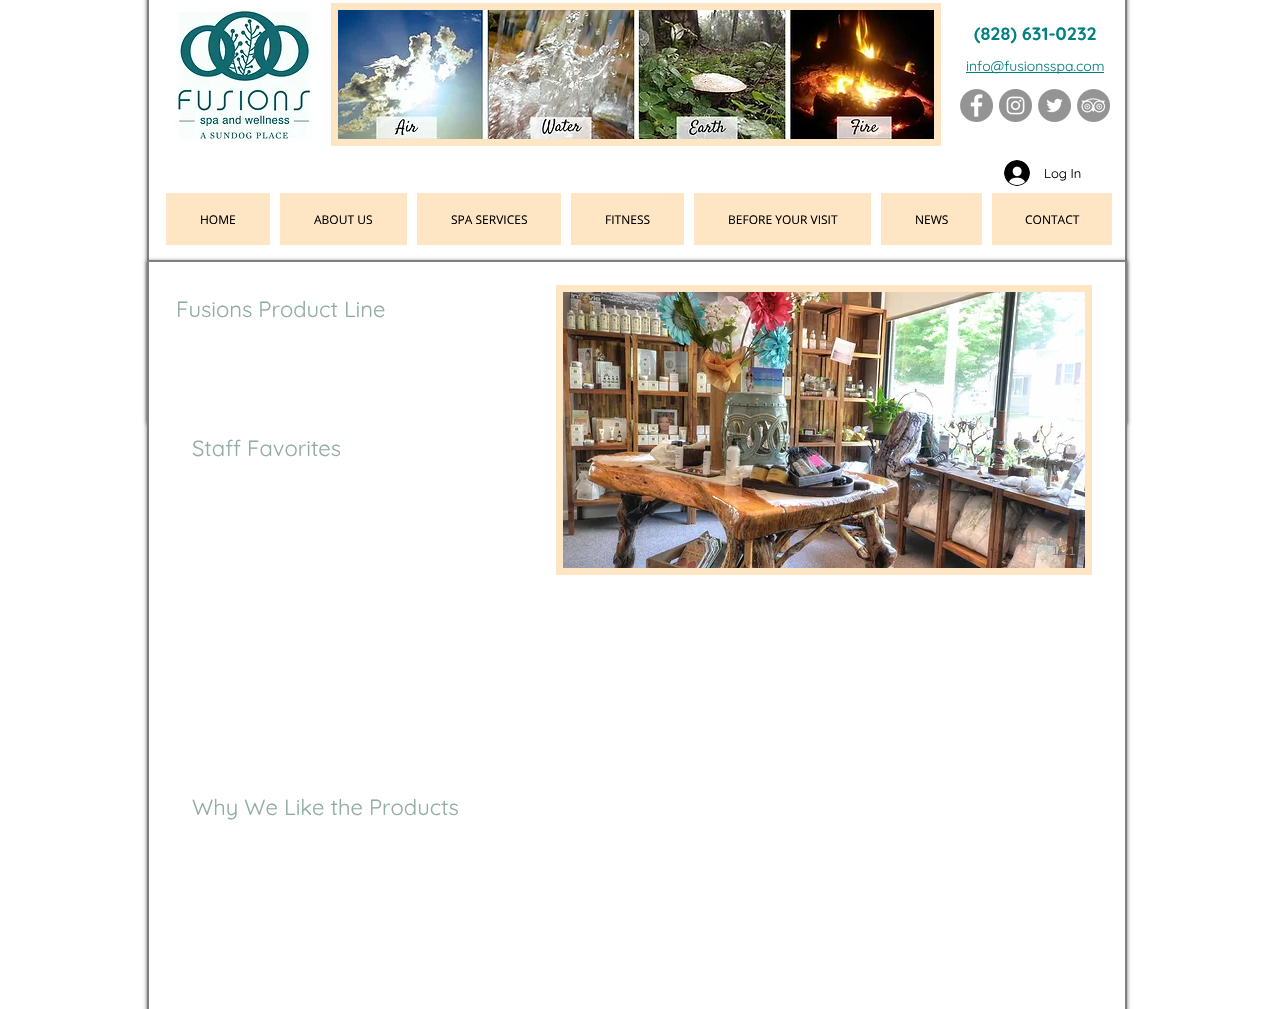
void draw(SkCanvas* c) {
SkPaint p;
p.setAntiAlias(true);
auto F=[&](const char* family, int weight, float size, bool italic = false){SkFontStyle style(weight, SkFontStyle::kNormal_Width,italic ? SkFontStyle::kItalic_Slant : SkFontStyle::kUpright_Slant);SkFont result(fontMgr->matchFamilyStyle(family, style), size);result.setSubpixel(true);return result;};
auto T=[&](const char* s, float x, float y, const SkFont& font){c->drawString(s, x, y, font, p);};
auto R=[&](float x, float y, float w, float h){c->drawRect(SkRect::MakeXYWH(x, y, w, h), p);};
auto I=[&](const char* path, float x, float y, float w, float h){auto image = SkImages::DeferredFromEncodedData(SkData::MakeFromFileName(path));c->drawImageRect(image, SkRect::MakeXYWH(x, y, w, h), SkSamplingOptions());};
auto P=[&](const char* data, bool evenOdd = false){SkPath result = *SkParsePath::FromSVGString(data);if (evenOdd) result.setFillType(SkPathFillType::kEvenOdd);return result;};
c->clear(0xffffffff);
c->save();
c->clipPath(P("M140 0h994v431h-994zm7-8h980v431h-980z",true),true);
p.setColor(0x99000000);
p.setMaskFilter(SkMaskFilter::MakeBlur(kNormal_SkBlurStyle, 2));
c->drawRect(SkRect::MakeXYWH(147,-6,980,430),p);
p.setMaskFilter(nullptr);
c->restore();
p.setStroke(true);
p.setStrokeWidth(2);
p.setColor(0xff808080);
c->drawRect(SkRect::MakeXYWH(148,-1,978,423),p);
p.setStroke(false);
p.setColor(0xfffee6c4);
R(331,3,610,143);
I("1.png",338,10,596,129);
I("2.png",175,6,137,136);
auto f1 = F("Quicksand",700,18);
p.setColor(0xff008080);
T("(828) 631-0232",974,40,f1);
R(966,72,138,1);
auto f2 = F("Quicksand",400,14);
T("info@fusionsspa.com",966,71,f2);
I("3.png",960,89,33,33);
I("4.png",999,89,33,33);
I("5.png",1038,89,33,33);
I("6.png",1077,89,33,33);
I("7.png",1004,160,26,26);
auto f3 = F("Quicksand",400,13);
p.setColor(0xff000000);
T("Log In",1044,178,f3);
p.setColor(0xfffee6c4);
R(166,193,104,52);
auto f4 = F("Open Sans",400,12);
p.setColor(0xff000000);
T("HOME",200,224,f4);
p.setColor(0xfffee6c4);
R(280,193,127,52);
p.setColor(0xff000000);
T("ABOUT US",314,224,f4);
p.setColor(0xfffee6c4);
R(417,193,144,52);
p.setColor(0xff000000);
T("SPA SERVICES",451,224,f4);
p.setColor(0xfffee6c4);
R(571,193,113,52);
p.setColor(0xff000000);
T("FITNESS",605,224,f4);
p.setColor(0xfffee6c4);
R(694,193,177,52);
p.setColor(0xff000000);
T("BEFORE YOUR VISIT",728,224,f4);
p.setColor(0xfffee6c4);
R(881,193,101,52);
p.setColor(0xff000000);
T("NEWS",915,224,f4);
p.setColor(0xfffee6c4);
R(992,193,120,52);
p.setColor(0xff000000);
T("CONTACT",1025,224,f4);
p.setColor(0x99000000);
p.setMaskFilter(SkMaskFilter::MakeBlur(kNormal_SkBlurStyle, 2));
c->drawRect(SkRect::MakeXYWH(147,261,980,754),p);
p.setMaskFilter(nullptr);
p.setColor(0xffffffff);
c->drawRect(SkRect::MakeXYWH(148,261,978,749),p);
p.setStroke(true);
p.setColor(0xff808080);
c->drawRect(SkRect::MakeXYWH(148,261,978,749),p);
auto f5 = F("Quicksand",400,22);
p.setStroke(false);
p.setColor(0xff91aba5);
T("Fusions Product Line",176,317,f5);
T("Staff Favorites",192,456,f5);
p.setColor(0xfffee6c4);
R(556,285,536,290);
I("8.png",563,292,522,276);
auto f6 = F("Liberation Sans",400,12);
p.setColor(0xff988374);
T("1/21",1052,555,f6);
p.setColor(0xff91aba5);
T("Why We Like the Products",192,815,f5);
}
